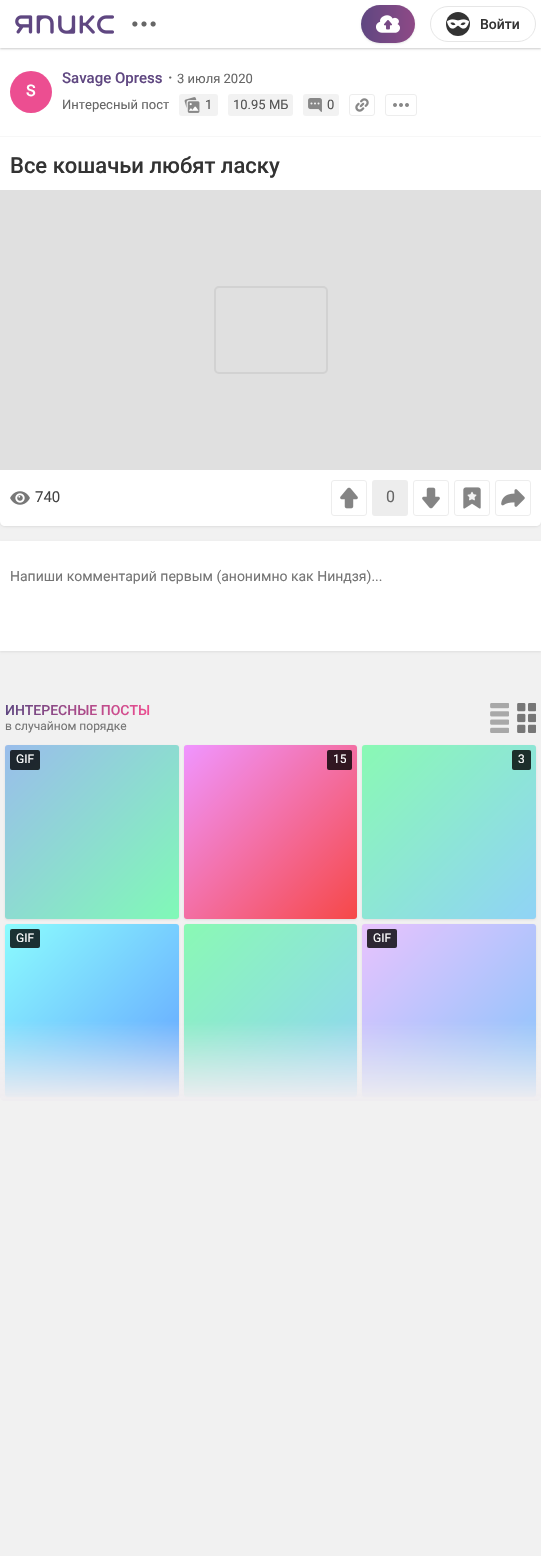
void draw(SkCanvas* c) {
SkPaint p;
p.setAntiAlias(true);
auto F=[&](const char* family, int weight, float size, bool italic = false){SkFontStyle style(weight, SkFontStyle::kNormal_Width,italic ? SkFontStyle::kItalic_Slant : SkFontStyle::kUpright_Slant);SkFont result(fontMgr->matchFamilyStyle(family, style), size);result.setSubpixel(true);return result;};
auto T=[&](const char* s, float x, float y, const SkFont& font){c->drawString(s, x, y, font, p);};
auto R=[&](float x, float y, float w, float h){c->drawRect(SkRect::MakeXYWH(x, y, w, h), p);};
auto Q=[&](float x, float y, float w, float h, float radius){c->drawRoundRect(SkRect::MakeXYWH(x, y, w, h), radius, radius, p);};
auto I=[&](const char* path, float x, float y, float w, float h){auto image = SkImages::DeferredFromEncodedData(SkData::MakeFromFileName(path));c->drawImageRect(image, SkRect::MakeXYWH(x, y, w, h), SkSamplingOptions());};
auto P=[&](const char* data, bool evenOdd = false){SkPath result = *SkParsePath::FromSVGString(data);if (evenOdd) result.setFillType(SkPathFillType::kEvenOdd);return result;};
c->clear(0xfff1f1f1);
p.setColor(0x14000000);
p.setMaskFilter(SkMaskFilter::MakeBlur(kNormal_SkBlurStyle, 1));
c->drawRoundRect(SkRect::MakeXYWH(0,138,541,389),5,5,p);
p.setMaskFilter(nullptr);
p.setColor(0xffffffff);
R(0,48,541,88);
p.setColor(0x33000000);
p.setMaskFilter(SkMaskFilter::MakeBlur(kNormal_SkBlurStyle, 1));
c->drawRect(SkRect::MakeXYWH(0,1,541,48),p);
p.setMaskFilter(nullptr);
p.setColor(0xffffffff);
R(0,0,541,48);
I("1.png",15,15,99,19);
I("2.png",132,21,24,6);
p.setColor(0x1a000000);
p.setMaskFilter(SkMaskFilter::MakeBlur(kNormal_SkBlurStyle, 1));
c->drawRoundRect(SkRect::MakeXYWH(361,6,54,38),19,19,p);
p.setMaskFilter(nullptr);
{
const SkColor colors[] = {0xff5f4781,0xffec4e91};
const float stops[] = {0,1};
const SkPoint ends[] = {{361,24}, {523,24}};
p.setShader(SkGradientShader::MakeLinear(ends, colors, stops, 2, SkTileMode::kClamp));
p.setAlpha(255);
}
Q(361,5,54,38,19);
I("3.png",376,15,24,18);
p.setStroke(true);
p.setStrokeWidth(1);
p.setShader(nullptr);
p.setColor(0xffe6e6e6);
c->drawRoundRect(SkRect::MakeXYWH(430.5,6.5,105,35),17.5,17.5,p);
p.setStroke(false);
p.setColor(0xff333333);
c->drawCircle(458,24,12,p);
I("4.png",447,19,22,10);
auto f1 = F("Roboto",500,14);
T("Войти",480,29,f1);
p.setColor(0xfff7f7f7);
R(0,136,541,1);
p.setColor(0xffec4e91);
c->drawCircle(31,92,21,p);
auto f2 = F("Roboto",500,16);
p.setColor(0xffffffff);
T("S",26,96,f2);
auto f3 = F("Roboto",500,15);
p.setColor(0xff5f4781);
T("Savage Opress",62,83,f3);
p.setColor(0xff666666);
T("·",168,83,f2);
auto f4 = F("Roboto",400,13);
T("3 июля 2020",177,83,f4);
T("Интересный пост",62,109,f4);
p.setColor(0xfff2f2f2);
Q(179,94,39,22,3);
I("5.png",184,97,16,16);
p.setColor(0xff555555);
T("1",205,109,f4);
p.setColor(0xfff2f2f2);
Q(228,94,65,22,3);
p.setColor(0xff555555);
T("10.95 МБ",233,109,f4);
p.setColor(0xfff2f2f2);
Q(303,94,36,22,3);
I("6.png",308,98,14,14);
p.setColor(0xff555555);
T("0",327,109,f4);
p.setStroke(true);
p.setColor(0xffededed);
c->drawRoundRect(SkRect::MakeXYWH(349.5,94.5,25,21),2.5,2.5,p);
I("7.png",355,98,14,14);
c->drawRoundRect(SkRect::MakeXYWH(385.5,94.5,31,21),2.5,2.5,p);
I("8.png",393,103,16,4);
p.setStroke(false);
p.setColor(0xffffffff);
c->drawPath(P("M0 137h541v384c0 3-2 5-5 5h-531c-3 0-5-2-5-5z"),p);
auto f5 = F("Roboto",500,22);
p.setColor(0xff333333);
T("Все кошачьи любят ласку",10,173,f5);
p.setColor(0xffe0e0e0);
R(0,190,541,280);
p.setStroke(true);
p.setStrokeWidth(2);
p.setColor(0xffd2d2d2);
c->drawRoundRect(SkRect::MakeXYWH(215,287,112,86),4,4,p);
I("9.png",10,491,20,14);
auto f6 = F("Roboto",400,15);
p.setStroke(false);
p.setColor(0xff444444);
T("740",35,502,f6);
p.setStroke(true);
p.setStrokeWidth(1);
p.setColor(0xffededed);
c->drawRoundRect(SkRect::MakeXYWH(331.5,480.5,35,35),2.5,2.5,p);
I("10.png",340,487,18,22);
p.setStroke(false);
Q(372,480,36,36,3);
auto f7 = F("Roboto",400,16);
p.setColor(0xff666666);
T("0",386,502,f7);
p.setStroke(true);
p.setColor(0xffededed);
c->drawRoundRect(SkRect::MakeXYWH(413.5,480.5,35,35),2.5,2.5,p);
I("11.png",422,487,18,22);
c->drawRoundRect(SkRect::MakeXYWH(454.5,480.5,35,35),2.5,2.5,p);
I("12.png",463,487,18,22);
c->drawRoundRect(SkRect::MakeXYWH(495.5,480.5,35,35),2.5,2.5,p);
I("13.png",501,489,24,18);
p.setStroke(false);
p.setColor(0x14000000);
p.setMaskFilter(SkMaskFilter::MakeBlur(kNormal_SkBlurStyle, 1));
c->drawRect(SkRect::MakeXYWH(0,542,541,110),p);
p.setMaskFilter(nullptr);
p.setColor(0xffffffff);
R(0,541,541,110);
auto f8 = F("Roboto",400,14);
p.setColor(0xff757575);
T("Напиши комментарий первым (анонимно как Ниндзя)...",10,581,f8);
{
const SkColor colors[] = {0xff5f4781,0xffec4e91};
const float stops[] = {0,1};
const SkPoint ends[] = {{5,710}, {150,710}};
p.setShader(SkGradientShader::MakeLinear(ends, colors, stops, 2, SkTileMode::kClamp));
p.setAlpha(255);
}
T("ИНТЕРЕСНЫЕ ПОСТЫ",5,715,f1);
auto f9 = F("Roboto",400,12);
p.setShader(nullptr);
p.setColor(0xff757575);
T("в случайном порядке",5,730,f9);
I("14.png",490,703,19,30);
I("15.png",517,703,19,30);
p.setColor(0x14000000);
p.setMaskFilter(SkMaskFilter::MakeBlur(kNormal_SkBlurStyle, 1));
c->drawRoundRect(SkRect::MakeXYWH(5,746,174,174),3,3,p);
p.setMaskFilter(nullptr);
{
const SkColor colors[] = {0xff9abdeb,0xff80f9b7};
const float stops[] = {0,1};
const SkPoint ends[] = {{5,745}, {179,919}};
p.setShader(SkGradientShader::MakeLinear(ends, colors, stops, 2, SkTileMode::kClamp));
p.setAlpha(255);
}
Q(5,745,174,174,3);
p.setShader(nullptr);
p.setColor(0xcc000000);
Q(10,750,30,20,2);
p.setColor(0xffffffff);
T("GIF",16,763,f9);
p.setColor(0x14000000);
p.setMaskFilter(SkMaskFilter::MakeBlur(kNormal_SkBlurStyle, 1));
c->drawRoundRect(SkRect::MakeXYWH(184,746,173,174),3,3,p);
p.setMaskFilter(nullptr);
{
const SkColor colors[] = {0xfff095ff,0xfff64848};
const float stops[] = {0,1};
const SkPoint ends[] = {{184,746}, {357,918}};
p.setShader(SkGradientShader::MakeLinear(ends, colors, stops, 2, SkTileMode::kClamp));
p.setAlpha(255);
}
Q(184,745,173,174,3);
p.setShader(nullptr);
p.setColor(0xcc000000);
Q(327,750,25,20,2);
p.setColor(0xffffffff);
T("15",333,763,f9);
p.setColor(0x14000000);
p.setMaskFilter(SkMaskFilter::MakeBlur(kNormal_SkBlurStyle, 1));
c->drawRoundRect(SkRect::MakeXYWH(362,746,174,174),3,3,p);
p.setMaskFilter(nullptr);
{
const SkColor colors[] = {0xff8af9b4,0xff90d3f6};
const float stops[] = {0,1};
const SkPoint ends[] = {{362,745}, {536,919}};
p.setShader(SkGradientShader::MakeLinear(ends, colors, stops, 2, SkTileMode::kClamp));
p.setAlpha(255);
}
Q(362,745,174,174,3);
p.setShader(nullptr);
p.setColor(0xcc000000);
Q(512,750,19,20,2);
p.setColor(0xffffffff);
T("3",518,763,f9);
p.setColor(0x14000000);
p.setMaskFilter(SkMaskFilter::MakeBlur(kNormal_SkBlurStyle, 1));
c->drawRoundRect(SkRect::MakeXYWH(5,925,174,173),3,3,p);
p.setMaskFilter(nullptr);
{
const SkColor colors[] = {0xff8bfcfe,0xff64a1ff};
const float stops[] = {0,1};
const SkPoint ends[] = {{5.5,924}, {178,1097}};
p.setShader(SkGradientShader::MakeLinear(ends, colors, stops, 2, SkTileMode::kClamp));
p.setAlpha(255);
}
Q(5,924,174,173,3);
p.setShader(nullptr);
p.setColor(0xcc000000);
Q(10,929,30,19,2);
p.setColor(0xffffffff);
T("GIF",16,942,f9);
p.setColor(0x14000000);
p.setMaskFilter(SkMaskFilter::MakeBlur(kNormal_SkBlurStyle, 1));
c->drawRoundRect(SkRect::MakeXYWH(184,925,173,173),3,3,p);
p.setMaskFilter(nullptr);
{
const SkColor colors[] = {0xff8af9b4,0xff90d3f6};
const float stops[] = {0,1};
const SkPoint ends[] = {{184,924}, {357,1097}};
p.setShader(SkGradientShader::MakeLinear(ends, colors, stops, 2, SkTileMode::kClamp));
p.setAlpha(255);
}
Q(184,924,173,173,3);
p.setShader(nullptr);
p.setColor(0x14000000);
p.setMaskFilter(SkMaskFilter::MakeBlur(kNormal_SkBlurStyle, 1));
c->drawRoundRect(SkRect::MakeXYWH(362,925,174,173),3,3,p);
p.setMaskFilter(nullptr);
{
const SkColor colors[] = {0xffe8c3fd,0xff86c5fc};
const float stops[] = {0,1};
const SkPoint ends[] = {{363,924}, {535,1097}};
p.setShader(SkGradientShader::MakeLinear(ends, colors, stops, 2, SkTileMode::kClamp));
p.setAlpha(255);
}
Q(362,924,174,173,3);
p.setShader(nullptr);
p.setColor(0xcc000000);
Q(367,929,30,19,2);
p.setColor(0xffffffff);
T("GIF",373,942,f9);
{
const SkColor colors[] = {0x00efedf0,0xffefedf0};
const float stops[] = {0,1};
const SkPoint ends[] = {{271,1021}, {271,1101}};
p.setShader(SkGradientShader::MakeLinear(ends, colors, stops, 2, SkTileMode::kClamp));
p.setAlpha(255);
}
c->drawPath(P("M0 1021h541v75c0 3-2 5-5 5h-531c-3 0-5-2-5-5z"),p);
}
